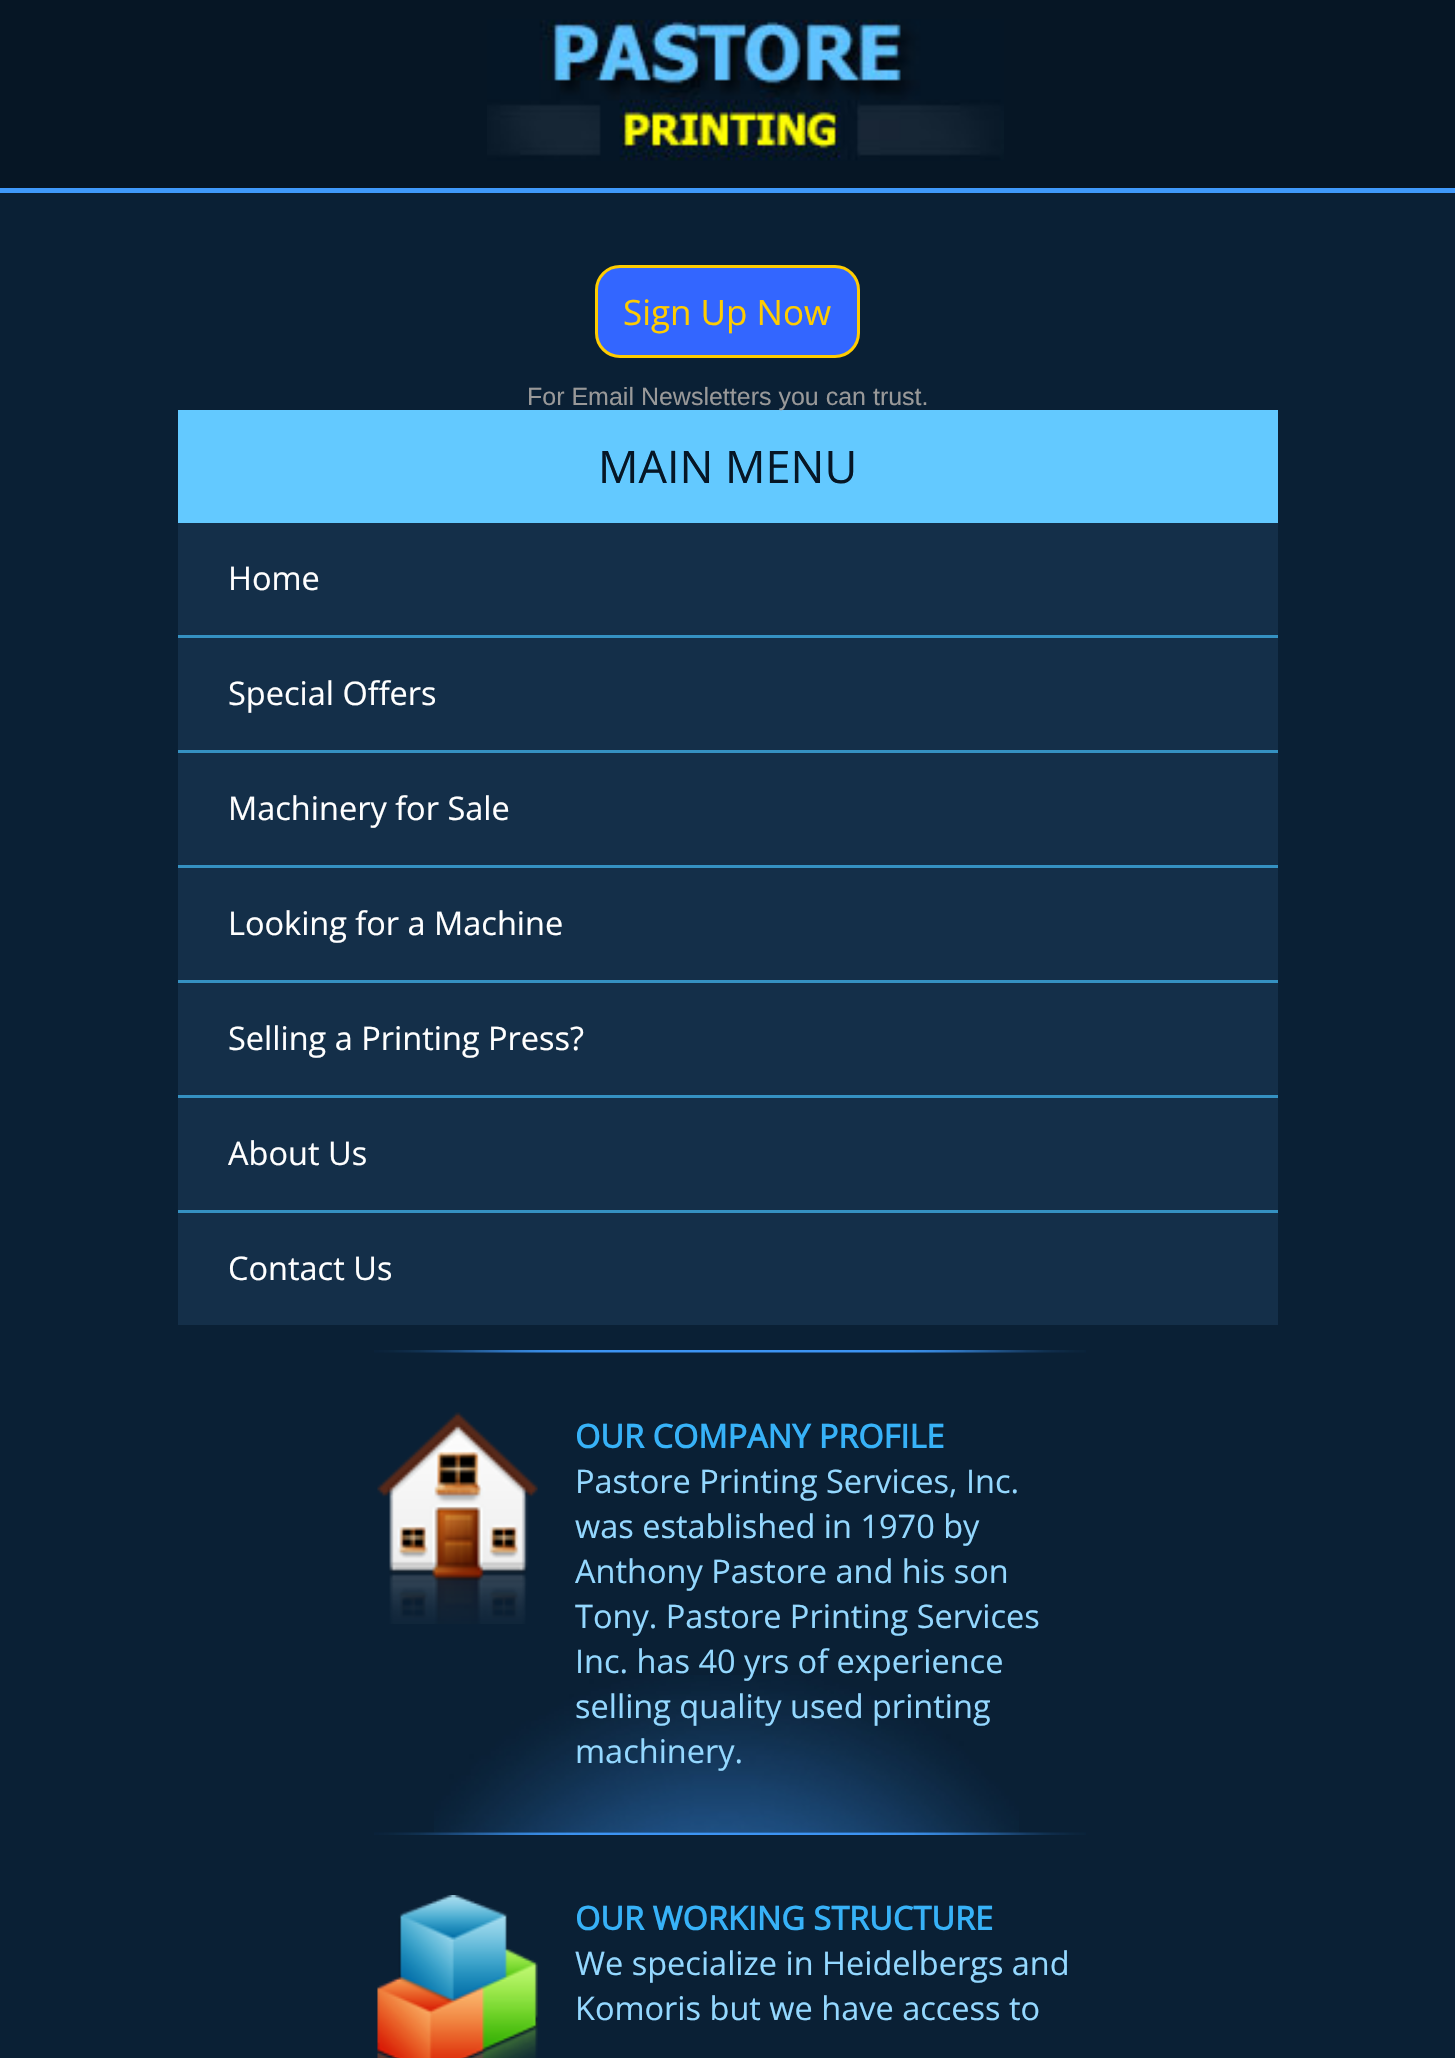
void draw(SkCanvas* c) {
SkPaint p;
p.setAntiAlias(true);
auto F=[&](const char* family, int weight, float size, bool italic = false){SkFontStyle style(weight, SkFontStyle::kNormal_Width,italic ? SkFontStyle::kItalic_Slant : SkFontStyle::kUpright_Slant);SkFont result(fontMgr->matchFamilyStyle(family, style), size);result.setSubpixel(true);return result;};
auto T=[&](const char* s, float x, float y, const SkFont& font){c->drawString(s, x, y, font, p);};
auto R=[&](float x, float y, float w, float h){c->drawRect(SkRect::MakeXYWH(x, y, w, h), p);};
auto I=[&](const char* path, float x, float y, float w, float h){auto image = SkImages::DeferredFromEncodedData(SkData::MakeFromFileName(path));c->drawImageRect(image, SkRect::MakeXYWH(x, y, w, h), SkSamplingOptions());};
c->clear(0xff0a2035);
p.setColor(0xff061625);
R(0,0,1455,188);
p.setColor(0xff3f99fa);
R(0,188,1455,5);
I("1.png",487,19,517,142);
p.setColor(0xff3366ff);
c->drawRoundRect(SkRect::MakeXYWH(596.5,266.5,262,90),23.5,23.5,p);
p.setStroke(true);
p.setStrokeWidth(3);
p.setColor(0xffffcc00);
c->drawRoundRect(SkRect::MakeXYWH(596.5,266.5,262,90),23.5,23.5,p);
auto f1 = F("Open Sans",400,35);
p.setStroke(false);
T("Sign Up Now",623,325,f1);
p.setColor(0xff63c9ff);
R(178,410,1100,113);
auto f2 = F("Liberation Sans",400,25);
p.setColor(0xff999999);
T("For Email Newsletters you can trust.",527,405,f2);
auto f3 = F("Open Sans",400,45);
p.setColor(0xff061625);
T("MAIN MENU",598,483,f3);
p.setColor(0xff142f49);
R(178,523,1100,112);
p.setColor(0xff3591c2);
R(178,635,1100,3);
auto f4 = F("Open Sans",400,32.5);
p.setColor(0xffffffff);
T("Home",228,590,f4);
p.setColor(0xff142f49);
R(178,638,1100,112);
p.setColor(0xff3591c2);
R(178,750,1100,3);
p.setColor(0xffffffff);
T("Special Offers",228,705,f4);
p.setColor(0xff142f49);
R(178,753,1100,112);
p.setColor(0xff3591c2);
R(178,865,1100,3);
p.setColor(0xffffffff);
T("Machinery for Sale",228,820,f4);
p.setColor(0xff142f49);
R(178,868,1100,112);
p.setColor(0xff3591c2);
R(178,980,1100,3);
p.setColor(0xffffffff);
T("Looking for a Machine",228,935,f4);
p.setColor(0xff142f49);
R(178,983,1100,112);
p.setColor(0xff3591c2);
R(178,1095,1100,3);
p.setColor(0xffffffff);
T("Selling a Printing Press?",228,1050,f4);
p.setColor(0xff142f49);
R(178,1098,1100,112);
p.setColor(0xff3591c2);
R(178,1210,1100,3);
p.setColor(0xffffffff);
T("About Us",228,1165,f4);
p.setColor(0xff142f49);
R(178,1213,1100,112);
p.setColor(0xffffffff);
T("Contact Us",228,1280,f4);
I("2.png",374,1350,712,3);
I("3.png",434,1675,585,158);
I("4.png",377,1412,161,212);
auto f5 = F("Open Sans",700,32.5);
p.setColor(0xff37b2f8);
T("OUR COMPANY PROFILE",575,1448,f5);
p.setColor(0xff94d8ff);
T("Pastore Printing Services, Inc.",575,1493,f4);
T("was established in 1970 by",575,1538,f4);
T("Anthony Pastore and his son",575,1583,f4);
T("Tony. Pastore Printing Services",575,1628,f4);
T("Inc. has 40 yrs of experience",575,1673,f4);
T("selling quality used printing",575,1718,f4);
T("machinery.",575,1763,f4);
I("5.png",374,1832,712,3);
I("6.png",377,1895,161,163);
p.setColor(0xff37b2f8);
T("OUR WORKING STRUCTURE",575,1930,f5);
p.setColor(0xff94d8ff);
T("We specialize in Heidelbergs and",575,1975,f4);
T("Komoris but we have access to",575,2020,f4);
}
